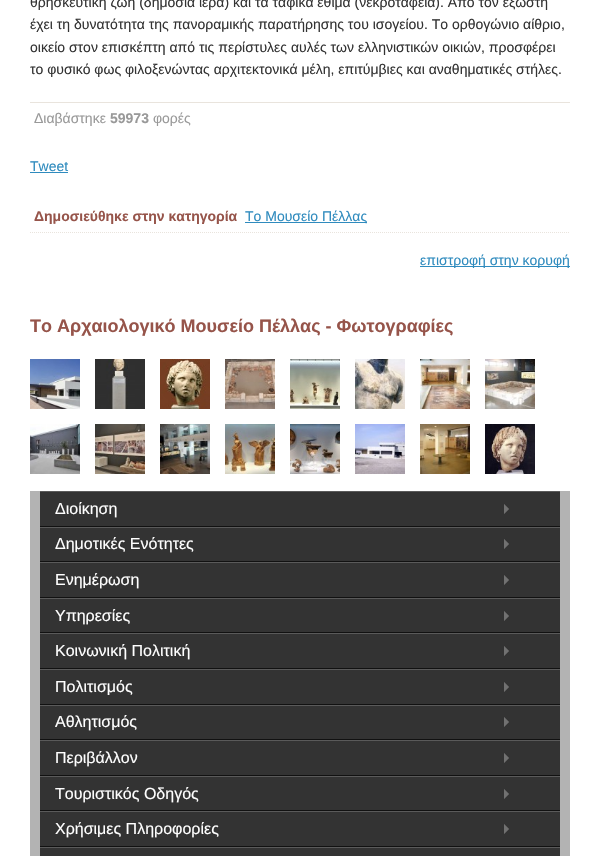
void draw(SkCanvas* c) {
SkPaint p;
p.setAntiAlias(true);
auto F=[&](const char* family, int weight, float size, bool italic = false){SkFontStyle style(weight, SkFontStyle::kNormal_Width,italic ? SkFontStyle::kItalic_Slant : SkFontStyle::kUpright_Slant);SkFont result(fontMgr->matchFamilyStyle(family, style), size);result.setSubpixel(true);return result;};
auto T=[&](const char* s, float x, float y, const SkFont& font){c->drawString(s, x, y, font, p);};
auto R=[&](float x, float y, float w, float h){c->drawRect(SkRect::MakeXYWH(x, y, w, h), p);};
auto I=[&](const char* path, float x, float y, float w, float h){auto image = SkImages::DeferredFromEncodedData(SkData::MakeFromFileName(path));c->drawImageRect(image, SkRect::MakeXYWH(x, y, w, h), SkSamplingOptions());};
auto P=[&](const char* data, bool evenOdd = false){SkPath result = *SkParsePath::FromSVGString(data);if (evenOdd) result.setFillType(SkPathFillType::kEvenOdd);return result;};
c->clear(0xffffffff);
auto f1 = F("Liberation Sans",400,14);
p.setColor(0xff333333);
T("θρησκευτική ζωή (δημόσια ιερά) και τα ταφικά έθιμα (νεκροταφεία). Από τον εξώστη",30,7,f1);
T("έχει τη δυνατότητα της πανοραμικής παρατήρησης του ισογείου. Το ορθογώνιο αίθριο,",30,29,f1);
T("οικείο στον επισκέπτη από τις περίστυλες αυλές των ελληνιστικών οικιών, προσφέρει",30,52,f1);
T("το φυσικό φως φιλοξενώντας αρχιτεκτονικά μέλη, επιτύμβιες και αναθηματικές στήλες.",30,74,f1);
p.setColor(0xffe9e4dd);
R(30,102,540,1);
p.setColor(0xff999999);
T("Διαβάστηκε",34,123,f1);
auto f2 = F("Liberation Sans",700,14);
T("59973",110,123,f2);
T("φορές",153,123,f1);
p.setColor(0xff2f8bbe);
T("Tweet",30,171,f1);
R(30,172,38,1);
p.setStroke(true);
p.setStrokeWidth(1);
p.setColor(0xffe9e4dd);
p.setPathEffect(SkDashPathEffect::Make({{1,1}}, 0));
c->drawPath(P("M30 232.5h540"),p);
p.setPathEffect(nullptr);
p.setStroke(false);
p.setColor(0xff96544a);
T("Δημοσιεύθηκε στην κατηγορία",34,221,f2);
p.setColor(0xff2f8bbe);
R(245,222,122,1);
T("Το Μουσείο Πέλλας",245,221,f1);
R(420,266,150,1);
T("επιστροφή στην κορυφή",420,265,f1);
auto f3 = F("Liberation Sans",700,18);
p.setColor(0xff96544a);
T("Το Αρχαιολογικό Μουσείο Πέλλας - Φωτογραφίες",30,332,f3);
I("1.png",30,359,50,50);
I("2.png",95,359,50,50);
I("3.png",160,359,50,50);
I("4.png",225,359,50,50);
I("5.png",290,359,50,50);
I("6.png",355,359,50,50);
I("7.png",420,359,50,50);
I("8.png",485,359,50,50);
I("9.png",30,424,50,50);
I("10.png",95,424,50,50);
I("11.png",160,424,50,50);
I("12.png",225,424,50,50);
I("13.png",290,424,50,50);
I("14.png",355,424,50,50);
I("15.png",420,424,50,50);
I("16.png",485,424,50,50);
p.setColor(0xffb3b3b3);
R(30,491,540,365);
p.setColor(0xff333333);
R(40,492,520,34);
p.setColor(0xff5a5a5a);
R(40,491,520,1);
p.setColor(0xff111111);
R(40,526,520,1);
I("17.png",504,504,5,10);
auto f4 = F("Liberation Sans",400,16);
p.setColor(0xffffffff);
T("Διοίκηση",55,514,f4);
p.setColor(0xff333333);
R(40,528,520,33);
p.setColor(0xff5a5a5a);
R(40,527,520,1);
p.setColor(0xff111111);
R(40,561,520,1);
I("17.png",504,539,5,10);
p.setColor(0xffffffff);
T("Δημοτικές Ενότητες",55,549,f4);
p.setColor(0xff333333);
R(40,563,520,34);
p.setColor(0xff5a5a5a);
R(40,562,520,1);
p.setColor(0xff111111);
R(40,597,520,1);
I("17.png",504,575,5,10);
p.setColor(0xffffffff);
T("Ενημέρωση",55,585,f4);
p.setColor(0xff333333);
R(40,599,520,33);
p.setColor(0xff5a5a5a);
R(40,598,520,1);
p.setColor(0xff111111);
R(40,632,520,1);
I("17.png",504,611,5,10);
p.setColor(0xffffffff);
T("Υπηρεσίες",55,621,f4);
p.setColor(0xff333333);
R(40,634,520,34);
p.setColor(0xff5a5a5a);
R(40,633,520,1);
p.setColor(0xff111111);
R(40,668,520,1);
I("17.png",504,646,5,10);
p.setColor(0xffffffff);
T("Κοινωνική Πολιτική",55,656,f4);
p.setColor(0xff333333);
R(40,670,520,34);
p.setColor(0xff5a5a5a);
R(40,669,520,1);
p.setColor(0xff111111);
R(40,704,520,1);
I("17.png",504,682,5,10);
p.setColor(0xffffffff);
T("Πολιτισμός",55,692,f4);
p.setColor(0xff333333);
R(40,706,520,33);
p.setColor(0xff5a5a5a);
R(40,705,520,1);
p.setColor(0xff111111);
R(40,739,520,1);
I("17.png",504,717,5,10);
p.setColor(0xffffffff);
T("Αθλητισμός",55,727,f4);
p.setColor(0xff333333);
R(40,741,520,34);
p.setColor(0xff5a5a5a);
R(40,740,520,1);
p.setColor(0xff111111);
R(40,775,520,1);
I("17.png",504,753,5,10);
p.setColor(0xffffffff);
T("Περιβάλλον",55,763,f4);
p.setColor(0xff333333);
R(40,777,520,33);
p.setColor(0xff5a5a5a);
R(40,776,520,1);
p.setColor(0xff111111);
R(40,810,520,1);
I("17.png",504,789,5,10);
p.setColor(0xffffffff);
T("Τουριστικός Οδηγός",55,799,f4);
p.setColor(0xff333333);
R(40,812,520,34);
p.setColor(0xff5a5a5a);
R(40,811,520,1);
p.setColor(0xff111111);
R(40,846,520,1);
I("17.png",504,824,5,10);
p.setColor(0xffffffff);
T("Χρήσιμες Πληροφορίες",55,834,f4);
p.setColor(0xff333333);
R(40,848,520,8);
p.setColor(0xff5a5a5a);
R(40,847,520,1);
}
